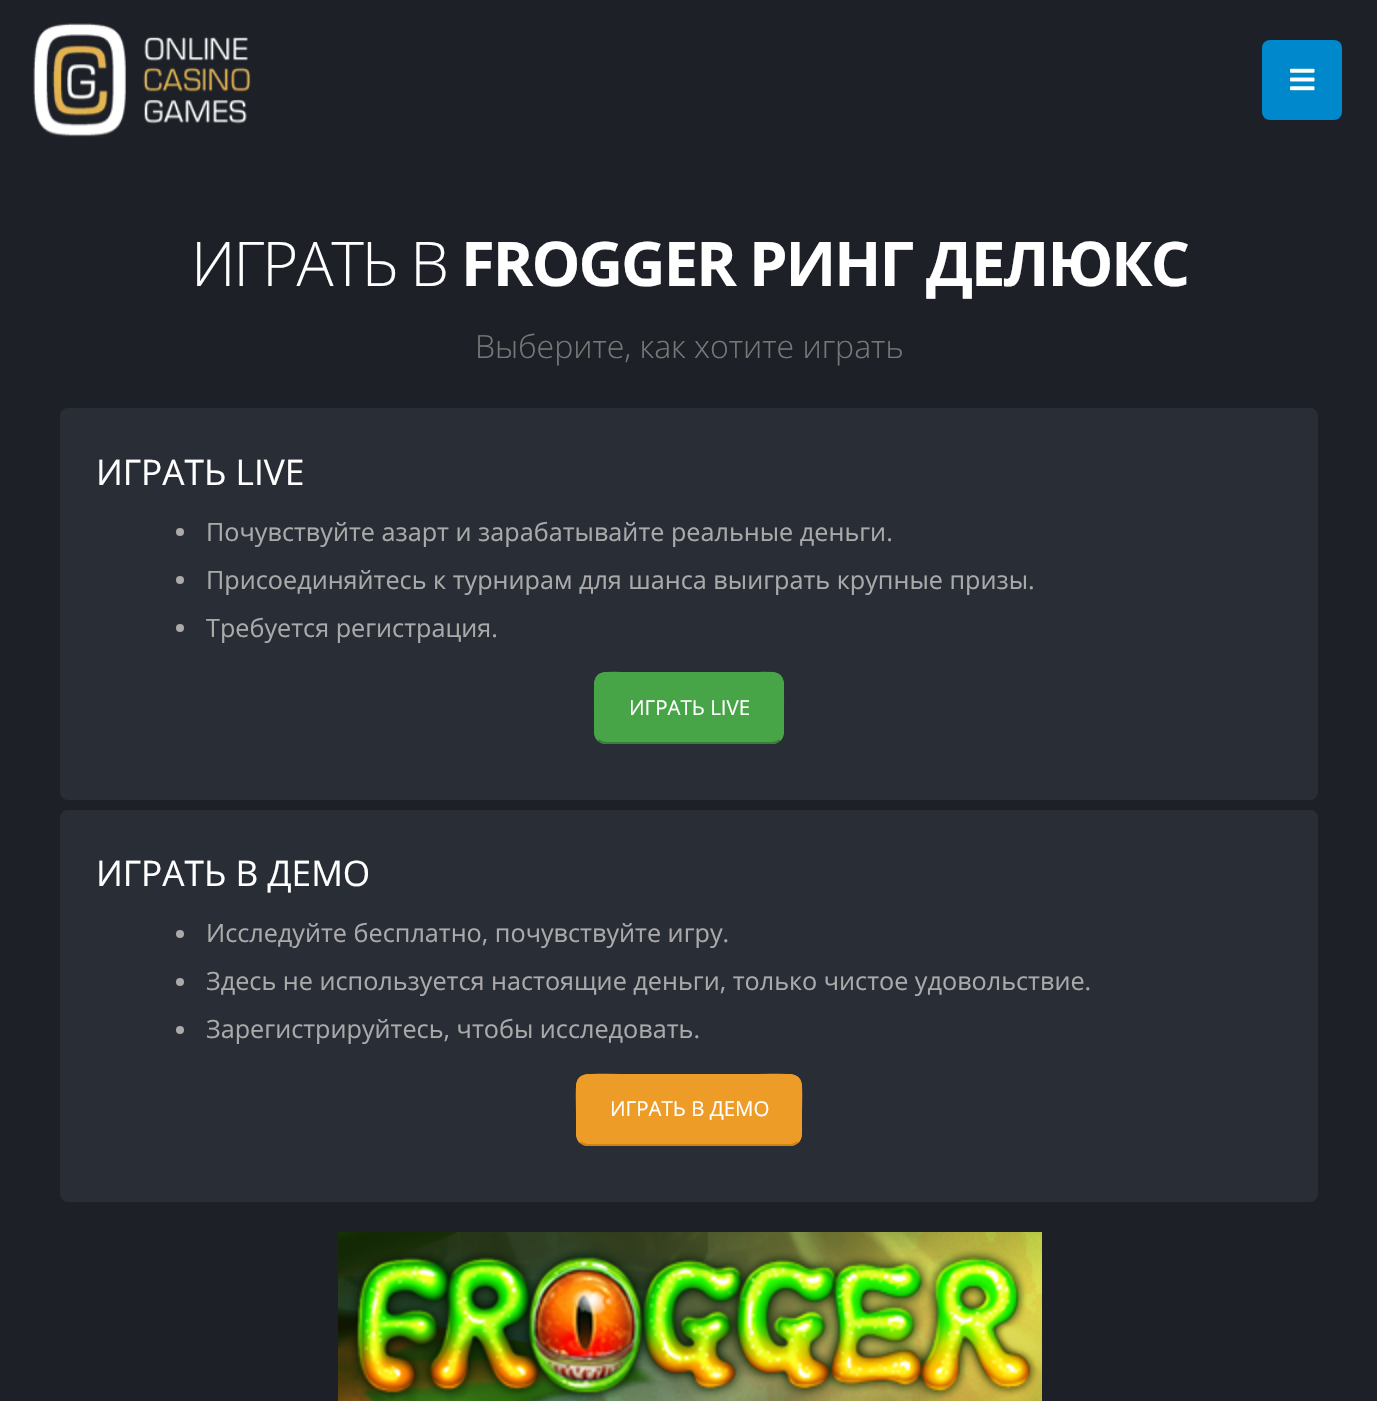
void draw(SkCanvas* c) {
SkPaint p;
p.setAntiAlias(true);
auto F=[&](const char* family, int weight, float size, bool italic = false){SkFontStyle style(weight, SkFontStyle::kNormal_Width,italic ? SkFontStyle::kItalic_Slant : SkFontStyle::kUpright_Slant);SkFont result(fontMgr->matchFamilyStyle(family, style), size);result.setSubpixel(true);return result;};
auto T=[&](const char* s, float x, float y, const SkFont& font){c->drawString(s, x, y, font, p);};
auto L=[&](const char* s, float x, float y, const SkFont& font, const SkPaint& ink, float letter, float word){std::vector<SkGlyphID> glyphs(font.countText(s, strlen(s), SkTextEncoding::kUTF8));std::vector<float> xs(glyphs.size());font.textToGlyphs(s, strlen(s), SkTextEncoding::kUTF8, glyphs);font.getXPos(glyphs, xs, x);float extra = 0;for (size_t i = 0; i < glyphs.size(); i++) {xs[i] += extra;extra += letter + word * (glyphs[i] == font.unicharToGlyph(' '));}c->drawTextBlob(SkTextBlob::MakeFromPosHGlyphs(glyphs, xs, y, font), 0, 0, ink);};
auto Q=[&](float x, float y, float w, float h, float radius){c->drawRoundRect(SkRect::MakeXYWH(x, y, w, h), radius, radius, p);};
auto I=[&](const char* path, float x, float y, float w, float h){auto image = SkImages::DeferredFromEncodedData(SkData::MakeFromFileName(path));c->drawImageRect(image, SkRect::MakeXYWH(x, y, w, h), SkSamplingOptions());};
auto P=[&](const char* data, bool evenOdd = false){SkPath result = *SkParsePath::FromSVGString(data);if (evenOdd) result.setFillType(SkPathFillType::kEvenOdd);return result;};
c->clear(0xff1d2127);
I("1.png",33,23,218,114);
p.setColor(0xff0088cc);
Q(1262,40,80,80,8);
I("2.png",1290,68,25,23);
auto f1 = F("Open Sans",300,61.6);
p.setColor(0xffffffff);
L("ИГРАТЬ В",191,286,f1,p,-2,0);
auto f2 = F("Open Sans",700,61.6);
L("FROGGER РИНГ ДЕЛЮКС",461,286,f2,p,-2,0);
auto f3 = F("Open Sans",300,32);
p.setColor(0xff777777);
T("Выберите, как хотите играть",475,358,f3);
p.setColor(0xff282d36);
c->drawRoundRect(SkRect::MakeXYWH(61,409,1256,390),7,7,p);
p.setStroke(true);
p.setStrokeWidth(2);
c->drawRoundRect(SkRect::MakeXYWH(61,409,1256,390),7,7,p);
auto f4 = F("Open Sans",400,35.25);
p.setStroke(false);
p.setColor(0xffffffff);
T("ИГРАТЬ LIVE",96,485,f4);
p.setColor(0xffaaaaaa);
c->drawCircle(180,532,4,p);
auto f5 = F("Open Sans",400,25.2);
T("Почувствуйте азарт и зарабатывайте реальные деньги.",206,541,f5);
c->drawCircle(180,580,4,p);
T("Присоединяйтесь к турнирам для шанса выиграть крупные призы.",206,589,f5);
c->drawCircle(180,628,4,p);
T("Требуется регистрация.",206,637,f5);
p.setColor(0xff47a447);
Q(594,672,190,72,12);
p.setStroke(true);
p.setColor(0xff388038);
c->drawPath(P("M780 740c-2.5 2-5 3-8 3h-166c-3 0-5.5-1-8-3"),p);
p.setColor(0xff47a447);
c->drawPath(P("M598 740c-4-4.5-3-10.5-3-16v-16c0-40-3.5-35 38.5-35h111c42 0 38.5-5 38.5 35v16c0 5.5 1 11.5-3 16"),p);
auto f6 = F("Open Sans",400,20.5);
p.setStroke(false);
p.setColor(0xffffffff);
T("ИГРАТЬ LIVE",629,715,f6);
p.setColor(0xff282d36);
c->drawRoundRect(SkRect::MakeXYWH(61,811,1256,390),7,7,p);
p.setStroke(true);
c->drawRoundRect(SkRect::MakeXYWH(61,811,1256,390),7,7,p);
p.setStroke(false);
p.setColor(0xffffffff);
T("ИГРАТЬ В ДЕМО",96,886,f4);
p.setColor(0xffaaaaaa);
c->drawCircle(180,934,4,p);
T("Исследуйте бесплатно, почувствуйте игру.",206,942,f5);
c->drawCircle(180,982,4,p);
T("Здесь не используется настоящие деньги, только чистое удовольствие.",206,990,f5);
c->drawCircle(180,1030,4,p);
T("Зарегистрируйтесь, чтобы исследовать.",206,1038,f5);
p.setColor(0xffed9c28);
Q(576,1074,226,72,12);
p.setStroke(true);
p.setColor(0xffd18211);
c->drawPath(P("M798 1142c-2.5 2-5 3-8 3h-202c-3 0-5.5-1-8-3"),p);
p.setColor(0xffed9c28);
c->drawPath(P("M580 1142c-4-4.5-3-10.5-3-16v-8c0-49-6.5-43 44.5-43h135c51 0 44.5-6 44.5 43v8c0 5.5 1 11.5-3 16"),p);
p.setStroke(false);
p.setColor(0xffffffff);
T("ИГРАТЬ В ДЕМО",610,1116,f6);
I("3.png",338,1232,704,169);
}
